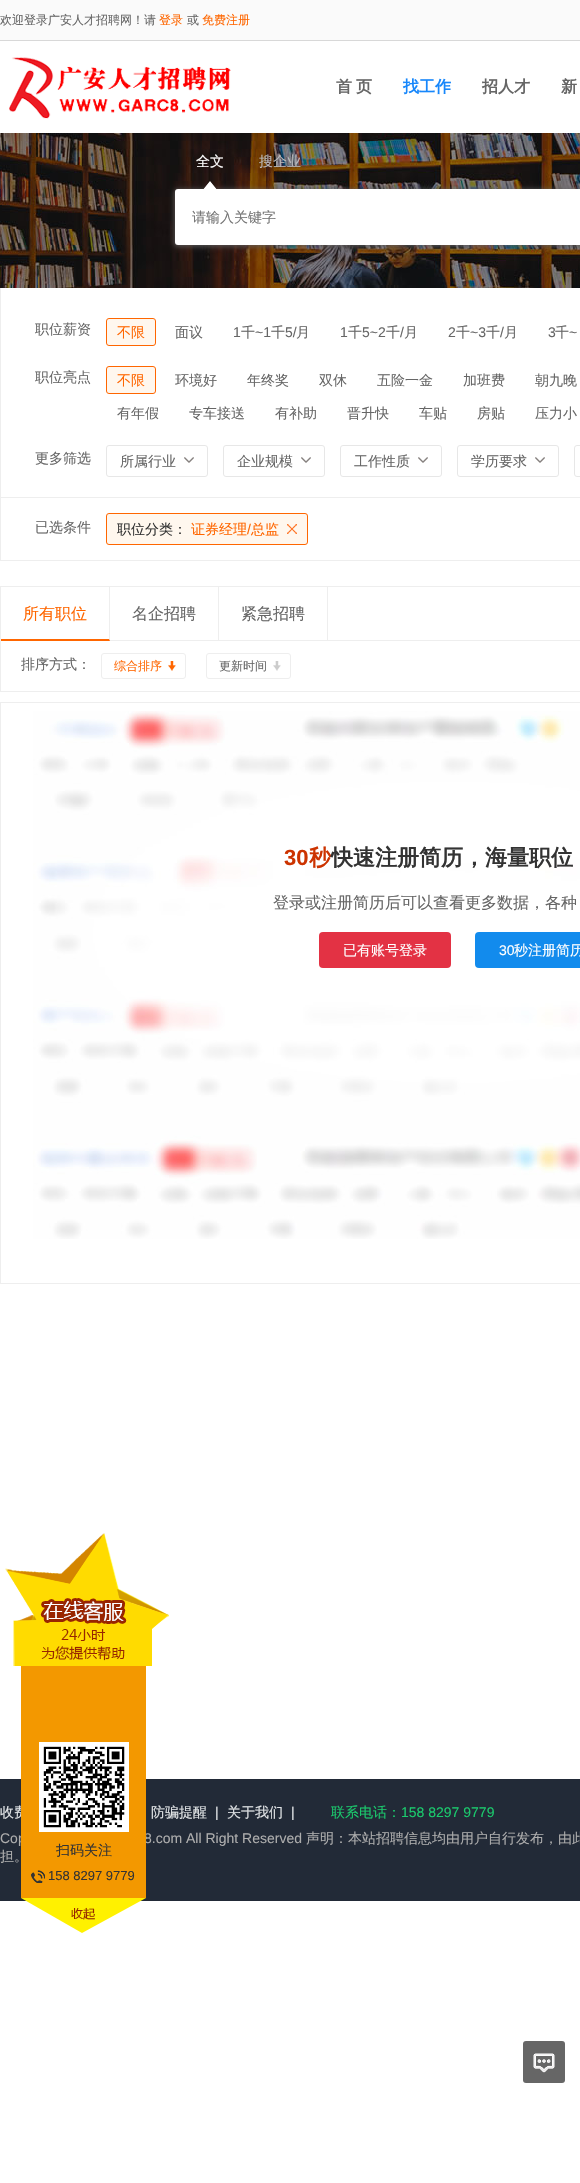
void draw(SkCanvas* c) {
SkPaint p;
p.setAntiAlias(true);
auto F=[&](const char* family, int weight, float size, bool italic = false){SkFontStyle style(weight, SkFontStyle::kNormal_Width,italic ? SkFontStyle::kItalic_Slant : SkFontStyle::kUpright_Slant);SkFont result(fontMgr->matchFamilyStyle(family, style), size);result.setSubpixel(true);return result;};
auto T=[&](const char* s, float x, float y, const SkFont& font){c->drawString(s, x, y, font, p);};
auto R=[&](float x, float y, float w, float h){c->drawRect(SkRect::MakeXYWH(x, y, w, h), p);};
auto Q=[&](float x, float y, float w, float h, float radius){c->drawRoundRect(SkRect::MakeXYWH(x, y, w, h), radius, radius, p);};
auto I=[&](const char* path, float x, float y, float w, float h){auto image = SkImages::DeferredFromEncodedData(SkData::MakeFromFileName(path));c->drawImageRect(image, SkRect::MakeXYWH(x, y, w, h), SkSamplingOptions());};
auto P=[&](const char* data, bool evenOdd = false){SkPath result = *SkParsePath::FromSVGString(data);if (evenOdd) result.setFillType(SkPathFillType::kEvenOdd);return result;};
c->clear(0xffffffff);
p.setColor(0xfffafafa);
R(0,0,580,40);
auto f1 = F("WenQuanYi Zen Hei",500,12);
p.setColor(0xff666666);
T("欢迎登录广安人才招聘网！请",0,24,f1);
p.setColor(0xffff6600);
T("登录",159,24,f1);
p.setColor(0xff666666);
T("或",187,24,f1);
p.setColor(0xffff6600);
T("免费注册",202,24,f1);
p.setColor(0xffd8d8d8);
R(0,40,580,1);
I("1.png",9,57,222,62);
auto f2 = F("WenQuanYi Zen Hei",700,16);
p.setColor(0xff666666);
T("首",336,92,f2);
T("页",356,92,f2);
p.setColor(0xff1787fb);
T("找工作",403,92,f2);
p.setColor(0xff666666);
T("招人才",482,92,f2);
T("新",561,92,f2);
I("2.png",0,133,580,155);
auto f3 = F("WenQuanYi Zen Hei",500,14);
p.setColor(0xffffffff);
T("全文",196,166,f3);
p.setColor(0xd45d5b5b);
p.setMaskFilter(SkMaskFilter::MakeBlur(kNormal_SkBlurStyle, 2.5));
c->drawRoundRect(SkRect::MakeXYWH(174,189,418,58),4,4,p);
p.setMaskFilter(nullptr);
I("3.png",203,181,14,8);
p.setColor(0xffbbbcbe);
T("搜企业",259,166,f3);
p.setColor(0xffffffff);
Q(175,189,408,56,3);
p.setColor(0xff757575);
T("请输入关键字",192,222,f3);
p.setColor(0xffeeeeee);
R(0,560,580,1);
R(0,288,1,273);
p.setColor(0xff666666);
T("职位薪资",35,334,f3);
p.setColor(0xfffff7ee);
c->drawRoundRect(SkRect::MakeXYWH(106.5,318.5,49,27),2.5,2.5,p);
p.setStroke(true);
p.setStrokeWidth(1);
p.setColor(0xffff6600);
c->drawRoundRect(SkRect::MakeXYWH(106.5,318.5,49,27),2.5,2.5,p);
p.setStroke(false);
T("不限",117,337,f3);
p.setColor(0xff666666);
T("面议",175,337,f3);
auto f4 = F("Liberation Sans",400,14);
T("1",233,337,f4);
T("千",241,337,f3);
T("~1",255,337,f4);
T("千",271,337,f3);
T("5/",285,337,f4);
T("月",296,337,f3);
T("1",340,337,f4);
T("千",348,337,f3);
T("5~2",362,337,f4);
T("千",386,337,f3);
T("/",400,337,f4);
T("月",404,337,f3);
T("2",448,337,f4);
T("千",456,337,f3);
T("~3",470,337,f4);
T("千",486,337,f3);
T("/",500,337,f4);
T("月",504,337,f3);
T("3",548,337,f4);
T("千",555,337,f3);
T("~",569,337,f4);
T("职位亮点",35,382,f3);
p.setColor(0xfffff7ee);
c->drawRoundRect(SkRect::MakeXYWH(106.5,366.5,49,27),2.5,2.5,p);
p.setStroke(true);
p.setColor(0xffff6600);
c->drawRoundRect(SkRect::MakeXYWH(106.5,366.5,49,27),2.5,2.5,p);
p.setStroke(false);
T("不限",117,385,f3);
p.setColor(0xff666666);
T("环境好",175,385,f3);
T("年终奖",247,385,f3);
T("双休",319,385,f3);
T("五险一金",377,385,f3);
T("加班费",463,385,f3);
T("朝九晚",535,385,f3);
T("有年假",117,418,f3);
T("专车接送",189,418,f3);
T("有补助",275,418,f3);
T("晋升快",347,418,f3);
T("车贴",419,418,f3);
T("房贴",477,418,f3);
T("压力小",535,418,f3);
T("更多筛选",35,463,f3);
I("4.png",184,457,10,6);
p.setStroke(true);
p.setColor(0xffe7e7e7);
c->drawRoundRect(SkRect::MakeXYWH(106.5,445.5,101,31),2.5,2.5,p);
p.setStroke(false);
p.setColor(0xff666666);
T("所属行业",120,466,f3);
I("4.png",301,457,10,6);
p.setStroke(true);
p.setColor(0xffe7e7e7);
c->drawRoundRect(SkRect::MakeXYWH(223.5,445.5,101,31),2.5,2.5,p);
p.setStroke(false);
p.setColor(0xff666666);
T("企业规模",237,466,f3);
I("4.png",418,457,10,6);
p.setStroke(true);
p.setColor(0xffe7e7e7);
c->drawRoundRect(SkRect::MakeXYWH(340.5,445.5,101,31),2.5,2.5,p);
p.setStroke(false);
p.setColor(0xff666666);
T("工作性质",354,466,f3);
I("4.png",535,457,10,6);
p.setStroke(true);
p.setColor(0xffe7e7e7);
c->drawRoundRect(SkRect::MakeXYWH(457.5,445.5,101,31),2.5,2.5,p);
p.setStroke(false);
p.setColor(0xff666666);
T("学历要求",471,466,f3);
p.setStroke(true);
p.setColor(0xffe7e7e7);
c->drawRoundRect(SkRect::MakeXYWH(574.5,445.5,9,31),2.5,2.5,p);
p.setStroke(false);
p.setColor(0xffeeeeee);
R(1,497,579,1);
p.setColor(0xff666666);
T("已选条件",35,532,f3);
p.setColor(0xfffff7ee);
Q(106,513,202,32,3);
I("5.png",287,524,10,10);
p.setStroke(true);
p.setColor(0xffff6600);
c->drawRoundRect(SkRect::MakeXYWH(106.5,513.5,201,31),2.5,2.5,p);
p.setStroke(false);
p.setColor(0xff333333);
T("职位分类：",117,534,f3);
p.setColor(0xffff6600);
T("证券经理",191,534,f3);
T("/",247,534,f4);
T("总监",251,534,f3);
p.setStroke(true);
p.setColor(0xffeeeeee);
c->drawRect(SkRect::MakeXYWH(.5,586.5,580,105),p);
p.setStroke(false);
R(109,640,471,1);
c->drawPath(P("M110 587v54l-1-2v-52z"),p);
p.setColor(0xffff6600);
c->drawPath(P("M110 641h-109v-2h108z"),p);
auto f5 = F("WenQuanYi Zen Hei",500,16);
T("所有职位",23,619,f5);
p.setColor(0xffeeeeee);
R(218,587,1,53);
p.setColor(0xff666666);
T("名企招聘",132,619,f5);
p.setColor(0xffeeeeee);
R(327,587,1,53);
p.setColor(0xff666666);
T("紧急招聘",241,619,f5);
T("排序方式：",21,669,f3);
I("6.png",168,661,8,10);
p.setStroke(true);
p.setColor(0xffeeeeee);
c->drawRoundRect(SkRect::MakeXYWH(101.5,653.5,84,25),2.5,2.5,p);
p.setStroke(false);
p.setColor(0xffff6600);
T("综合排序",114,670,f1);
I("7.png",273,661,8,10);
p.setStroke(true);
p.setColor(0xffeeeeee);
c->drawRoundRect(SkRect::MakeXYWH(206.5,653.5,84,25),2.5,2.5,p);
p.setStroke(false);
p.setColor(0xff666666);
T("更新时间",219,670,f1);
p.setStroke(true);
p.setColor(0xffeeeeee);
c->drawRect(SkRect::MakeXYWH(.5,702.5,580,581),p);
I("8.png",33,711,547,528);
auto f6 = F("Liberation Sans",700,22);
p.setStroke(false);
p.setColor(0xffcc3300);
T("30",284,865,f6);
auto f7 = F("WenQuanYi Zen Hei",700,22);
T("秒",309,865,f7);
p.setColor(0xff333333);
T("快速注册简历，海量职位",331,865,f7);
p.setColor(0xff666666);
T("登录或注册简历后可以查看更多数据，各种",273,908,f5);
p.setColor(0xffe33244);
Q(319,932,132,36,4);
p.setColor(0xffffffff);
T("已有账号登录",343,955,f3);
p.setColor(0xff128bed);
Q(475,932,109,36,4);
p.setColor(0xffffffff);
T("30",499,955,f4);
T("秒注册简历",514,955,f3);
p.setColor(0xff222a37);
R(0,1779,580,122);
p.setColor(0xffe1e4e6);
T("收费",0,1817,f3);
T("防骗提醒",151,1817,f3);
T("|",215,1817,f4);
T("关于我们",227,1817,f3);
T("|",291,1817,f4);
p.setColor(0xff1acb6d);
T("联系电话：",331,1817,f3);
T("158 8297 9779",401,1817,f4);
p.setColor(0xffadadad);
T("Cop",0,1843,f4);
T("8.com All Right Reserved",144,1843,f4);
T("声明：本站招聘信息均由用户自行发布，由此",306,1843,f3);
T("担。",0,1861,f3);
I("9.png",5,1533,164,133);
p.setColor(0xfff39800);
R(21,1666,125,232);
p.setColor(0xffffffff);
R(39,1742,90,90);
I("10.png",43,1746,82,82);
p.setColor(0xff333333);
T("扫码关注",56,1855,f3);
I("11.png",31,1870,14,13);
auto f8 = F("Liberation Sans",400,13);
T("158 8297 9779",48,1880,f8);
I("12.png",21,1898,125,35);
I("13.png",523,2041,42,42);
}
